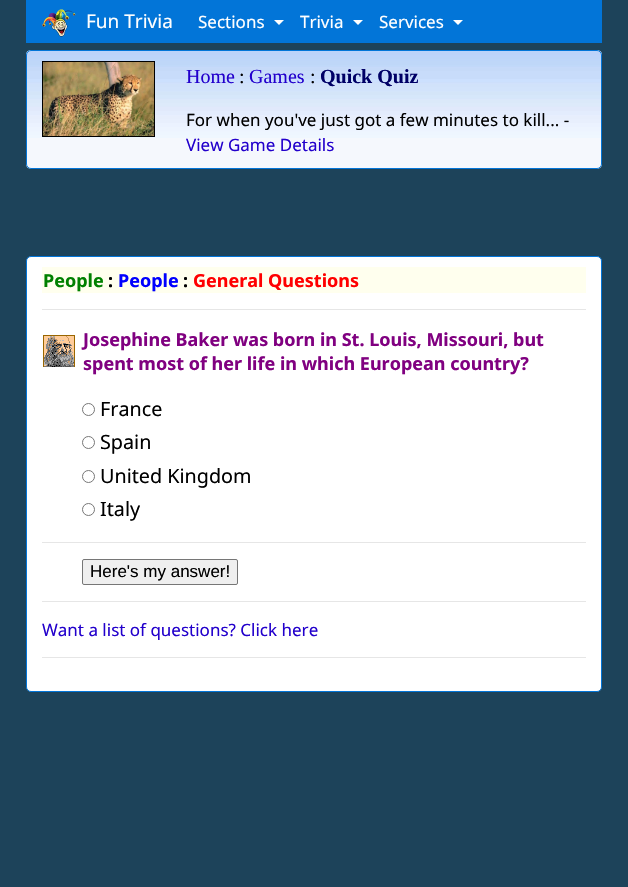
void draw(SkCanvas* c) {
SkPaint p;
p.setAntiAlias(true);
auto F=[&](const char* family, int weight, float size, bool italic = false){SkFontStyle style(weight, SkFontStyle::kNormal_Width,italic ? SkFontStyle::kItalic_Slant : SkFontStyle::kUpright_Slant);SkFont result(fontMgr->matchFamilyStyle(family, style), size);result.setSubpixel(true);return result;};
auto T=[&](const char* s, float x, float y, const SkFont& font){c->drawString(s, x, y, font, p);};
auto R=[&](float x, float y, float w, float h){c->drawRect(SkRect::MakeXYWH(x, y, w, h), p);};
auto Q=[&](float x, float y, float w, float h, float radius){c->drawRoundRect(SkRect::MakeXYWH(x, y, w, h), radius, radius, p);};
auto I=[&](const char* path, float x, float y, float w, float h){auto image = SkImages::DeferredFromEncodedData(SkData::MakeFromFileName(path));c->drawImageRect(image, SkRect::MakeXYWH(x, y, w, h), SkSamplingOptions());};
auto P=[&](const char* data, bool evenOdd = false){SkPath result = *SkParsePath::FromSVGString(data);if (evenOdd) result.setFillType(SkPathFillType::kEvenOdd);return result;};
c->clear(0xff1d435a);
p.setColor(0xff0275d8);
R(26,0,576,43);
I("1.png",42,9,34,28);
auto f1 = F("Noto Sans",400,19);
p.setColor(0xffffffff);
T("Fun Trivia",86,28,f1);
auto f2 = F("Noto Sans",400,17);
T("Sections",198,28,f2);
c->drawPath(P("M274 20h10l-5 5z"),p);
T("Trivia",300,28,f2);
c->drawPath(P("M353 20h10l-5 5z"),p);
T("Services",379,28,f2);
c->drawPath(P("M453 20h10l-5 5z"),p);
p.setColor(0xfff5f8fd);
Q(26,50,576,119,5);
I("2.png",26,51,576,87);
p.setStroke(true);
p.setStrokeWidth(1);
p.setColor(0xff0275d8);
c->drawRoundRect(SkRect::MakeXYWH(26.5,50.5,575,118),4.5,4.5,p);
p.setColor(0xff000000);
c->drawRect(SkRect::MakeXYWH(42.5,61.5,112,75),p);
I("3.png",43,62,111,74);
auto f3 = F("Liberation Serif",400,20);
p.setStroke(false);
p.setColor(0xff2200cc);
T("Home",186,83,f3);
p.setColor(0xff000000);
T(":",239,83,f3);
p.setColor(0xff2200cc);
T("Games",249,83,f3);
p.setColor(0xff000000);
T(":",310,83,f3);
auto f4 = F("Liberation Serif",700,20);
p.setColor(0xff000066);
T("Quick Quiz",320,83,f4);
p.setColor(0xff000000);
T("For when you've just got a few minutes to kill... -",186,126,f2);
p.setColor(0xff2200cc);
T("View Game Details",186,151,f2);
p.setColor(0xffffffff);
c->drawRoundRect(SkRect::MakeXYWH(26.5,256.5,575,435),4.5,4.5,p);
p.setStroke(true);
p.setColor(0xff0275d8);
c->drawRoundRect(SkRect::MakeXYWH(26.5,256.5,575,435),4.5,4.5,p);
p.setStroke(false);
p.setColor(0xffffffee);
R(42,267,544,26);
auto f5 = F("Noto Sans",700,18);
p.setColor(0xff008000);
T("People",43,287,f5);
p.setColor(0xff000000);
T(":",108,287,f5);
p.setColor(0xff0000ff);
T("People",118,287,f5);
p.setColor(0xff000000);
T(":",183,287,f5);
p.setColor(0xffff0000);
T("General Questions",193,287,f5);
p.setColor(0xffe6e6e6);
R(42,309,544,1);
I("4.png",43,335,32,32);
p.setColor(0xff800080);
T("Josephine Baker was born in St. Louis, Missouri, but",83,346,f5);
T("spent most of her life in which European country?",83,370,f5);
p.setStroke(true);
p.setColor(0xff767676);
c->drawCircle(88.5,409.5,6,p);
auto f6 = F("Noto Sans",400,19.75);
p.setStroke(false);
p.setColor(0xff000000);
T("France",100,416,f6);
p.setStroke(true);
p.setColor(0xff767676);
c->drawCircle(88.5,442.5,6,p);
p.setStroke(false);
p.setColor(0xff000000);
T("Spain",100,449,f6);
p.setStroke(true);
p.setColor(0xff767676);
c->drawCircle(88.5,476.5,6,p);
p.setStroke(false);
p.setColor(0xff000000);
T("United Kingdom",100,483,f6);
p.setStroke(true);
p.setColor(0xff767676);
c->drawCircle(88.5,509.5,6,p);
p.setStroke(false);
p.setColor(0xff000000);
T("Italy",100,516,f6);
p.setColor(0xffe6e6e6);
R(42,542,544,1);
p.setColor(0xffefefef);
c->drawRoundRect(SkRect::MakeXYWH(82.5,559.5,155,25),1.5,1.5,p);
p.setStroke(true);
p.setColor(0xff767676);
c->drawRoundRect(SkRect::MakeXYWH(82.5,559.5,155,25),1.5,1.5,p);
auto f7 = F("Liberation Sans",400,17);
p.setStroke(false);
p.setColor(0xff000000);
T("Here's my answer!",90,577,f7);
p.setColor(0xffe6e6e6);
R(42,601,544,1);
p.setColor(0xff2200cc);
T("Want a list of questions? Click here",42,636,f2);
p.setColor(0xffe6e6e6);
R(42,657,544,1);
}
